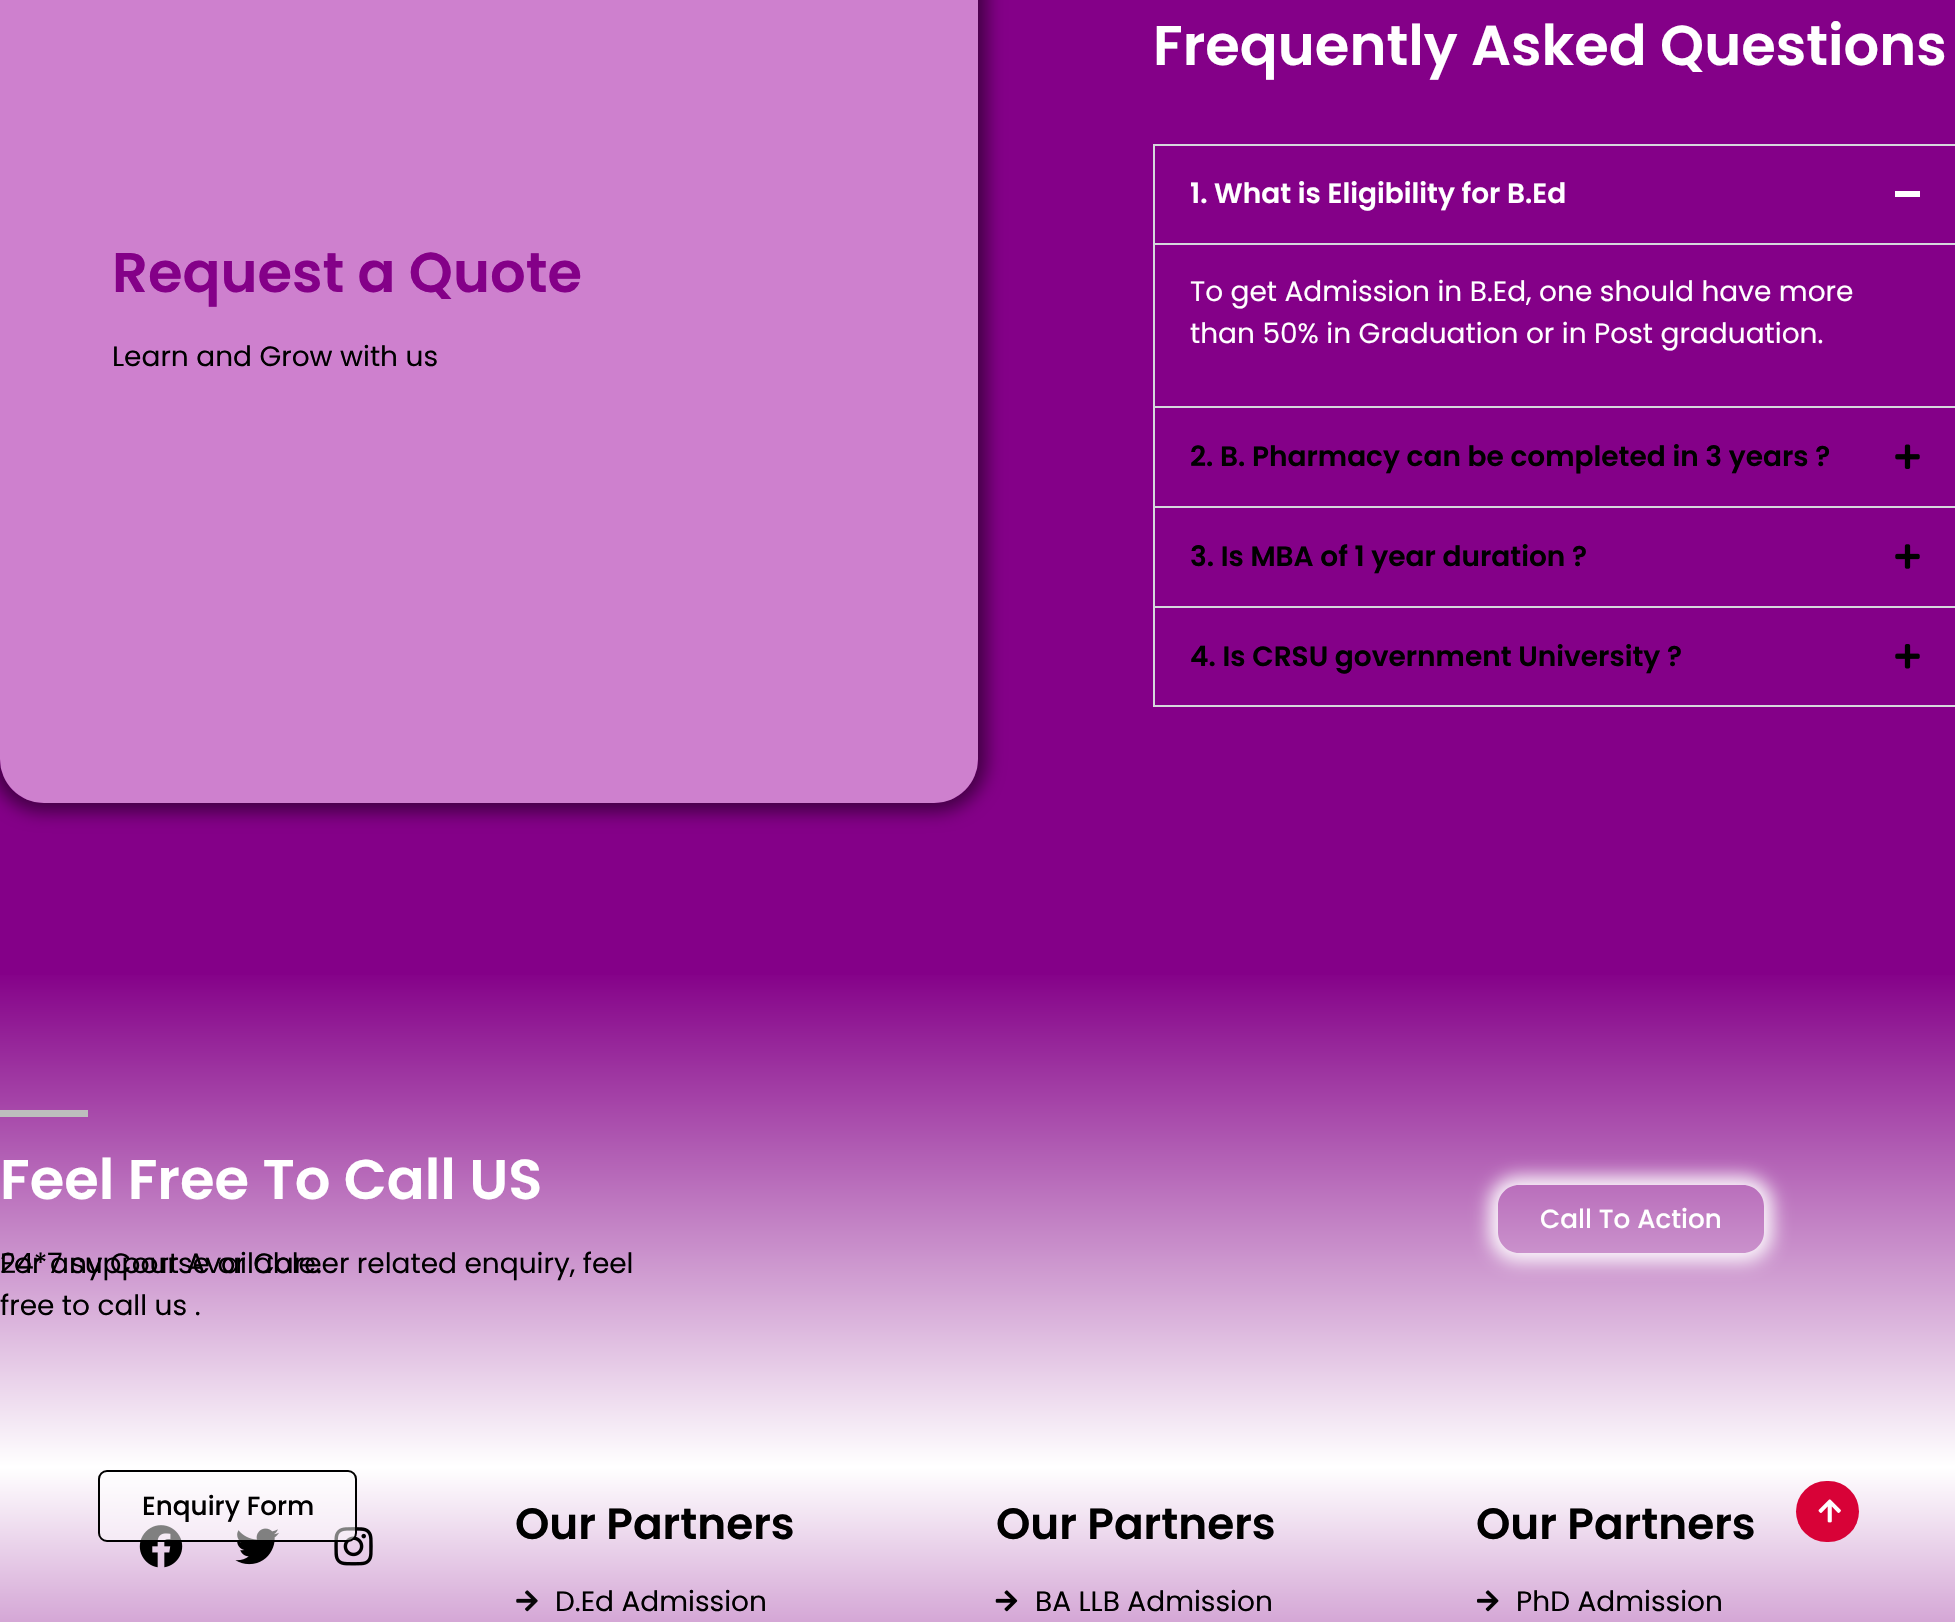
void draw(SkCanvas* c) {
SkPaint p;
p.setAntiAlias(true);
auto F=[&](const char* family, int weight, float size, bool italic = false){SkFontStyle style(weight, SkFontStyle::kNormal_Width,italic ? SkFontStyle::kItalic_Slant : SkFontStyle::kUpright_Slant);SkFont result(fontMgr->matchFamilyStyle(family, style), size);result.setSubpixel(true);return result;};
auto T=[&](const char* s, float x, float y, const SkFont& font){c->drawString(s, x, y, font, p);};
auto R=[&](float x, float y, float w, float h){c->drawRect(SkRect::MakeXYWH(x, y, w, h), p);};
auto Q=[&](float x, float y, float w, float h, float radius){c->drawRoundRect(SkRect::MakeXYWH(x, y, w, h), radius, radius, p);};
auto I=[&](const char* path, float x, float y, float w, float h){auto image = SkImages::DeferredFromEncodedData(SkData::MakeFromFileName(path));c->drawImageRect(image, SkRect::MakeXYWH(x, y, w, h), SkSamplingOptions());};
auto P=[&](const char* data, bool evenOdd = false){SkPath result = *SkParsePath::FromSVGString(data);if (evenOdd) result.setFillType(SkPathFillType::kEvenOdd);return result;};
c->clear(0xff840088);
c->save();
c->clipPath(P("M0 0h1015v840h-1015zm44-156h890c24.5 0 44 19.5 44 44v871c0 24.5-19.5 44-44 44h-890c-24.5 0-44-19.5-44-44v-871c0-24.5 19.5-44 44-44z",true),true);
p.setColor(0x80000000);
p.setMaskFilter(SkMaskFilter::MakeBlur(kNormal_SkBlurStyle, 9));
c->drawRoundRect(SkRect::MakeXYWH(-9,-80,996,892),53,53,p);
p.setMaskFilter(nullptr);
c->restore();
p.setColor(0x8affffff);
Q(0,-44,978,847,44);
p.setColor(0x21ff41f1);
Q(0,-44,978,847,44);
auto f1 = F("Poppins",600,56);
p.setColor(0xff840088);
T("Request a Quote",112,292,f1);
auto f2 = F("Poppins",400,28);
p.setColor(0xff000000);
T("Learn and Grow with us",112,366,f2);
p.setColor(0xffffffff);
T("Frequently Asked Questions",1153,65,f1);
p.setStroke(true);
p.setStrokeWidth(2);
p.setColor(0xffd5d8dc);
c->drawRect(SkRect::MakeXYWH(1154,145,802,262),p);
auto f3 = F("Poppins",600,28);
p.setStroke(false);
p.setColor(0xffffffff);
T("1. What is Eligibility for B.Ed",1190,203,f3);
R(1895,191,25,6);
p.setColor(0xffd5d8dc);
R(1155,243,800,2);
p.setColor(0xffffffff);
T("To get Admission in B.Ed, one should have more",1190,301,f2);
T("than 50% in Graduation or in Post graduation.",1190,343,f2);
p.setColor(0xffd5d8dc);
R(1153,506,802,2);
R(1153,408,2,100);
p.setColor(0xff000000);
T("2. B. Pharmacy can be completed in 3 years ?",1190,466,f3);
I("1.png",1895,444,25,25);
p.setColor(0xffd5d8dc);
R(1153,606,802,2);
R(1153,508,2,99);
p.setColor(0xff000000);
T("3. Is MBA of 1 year duration ?",1190,566,f3);
I("2.png",1895,544,25,25);
p.setColor(0xffd5d8dc);
R(1153,705,802,2);
R(1153,607,2,100);
p.setColor(0xff000000);
T("4. Is CRSU government University ?",1190,666,f3);
I("3.png",1895,644,25,25);
{
const SkColor colors[] = {0xff840088,0xffffffff};
const float stops[] = {0,1};
const SkPoint ends[] = {{978,970}, {978,1467}};
p.setShader(SkGradientShader::MakeLinear(ends, colors, stops, 2, SkTileMode::kClamp));
p.setAlpha(255);
}
R(0,975,1955,492);
p.setShader(nullptr);
p.setColor(0xffbdbdbd);
R(0,1110,88,7);
p.setColor(0xffffffff);
T("Feel Free To Call US",0,1199,f1);
p.setColor(0xff000000);
T("For any Course or Career related enquiry, feel",0,1273,f2);
T("24*7 support Available.",0,1273,f2);
T("free to call us .",0,1315,f2);
c->save();
c->clipPath(P("M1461 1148h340v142h-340zm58 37h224c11.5 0 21 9.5 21 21v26c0 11.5-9.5 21-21 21h-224c-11.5 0-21-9.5-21-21v-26c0-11.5 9.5-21 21-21z",true),true);
p.setColor(0xebffffff);
p.setMaskFilter(SkMaskFilter::MakeBlur(kNormal_SkBlurStyle, 9));
c->drawRoundRect(SkRect::MakeXYWH(1489,1176,284,86),30,30,p);
p.setMaskFilter(nullptr);
c->restore();
auto f4 = F("Poppins",500,26.25);
p.setColor(0xffffffff);
T("Call To Action",1540,1228,f4);
{
const SkColor colors[] = {0xff840088,0xffffffff};
const float stops[] = {0,1};
const SkPoint ends[] = {{978,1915}, {978,1467}};
p.setShader(SkGradientShader::MakeLinear(ends, colors, stops, 2, SkTileMode::kClamp));
p.setAlpha(255);
}
R(0,1467,1955,155);
I("4.png",139,1525,44,43);
I("5.png",235,1528,44,37);
I("6.png",334,1527,39,39);
auto f5 = F("Poppins",600,43.75);
p.setShader(nullptr);
p.setColor(0xff000000);
T("Our Partners",515,1539,f5);
I("7.png",516,1590,22,22);
T("D.Ed Admission",555,1611,f2);
T("Our Partners",996,1539,f5);
I("8.png",995,1590,23,22);
T("BA LLB Admission",1035,1611,f2);
T("Our Partners",1476,1539,f5);
I("9.png",1477,1590,22,22);
T("PhD Admission",1516,1611,f2);
p.setColor(0x80ffffff);
c->drawRoundRect(SkRect::MakeXYWH(99,1471,257,70),8,8,p);
p.setStroke(true);
p.setColor(0xff000000);
c->drawRoundRect(SkRect::MakeXYWH(99,1471,257,70),8,8,p);
p.setStroke(false);
T("Enquiry Form",142,1515,f4);
p.setColor(0xffd80237);
Q(1796,1481,63,61,30.5);
I("10.png",1818,1499,23,24);
}
